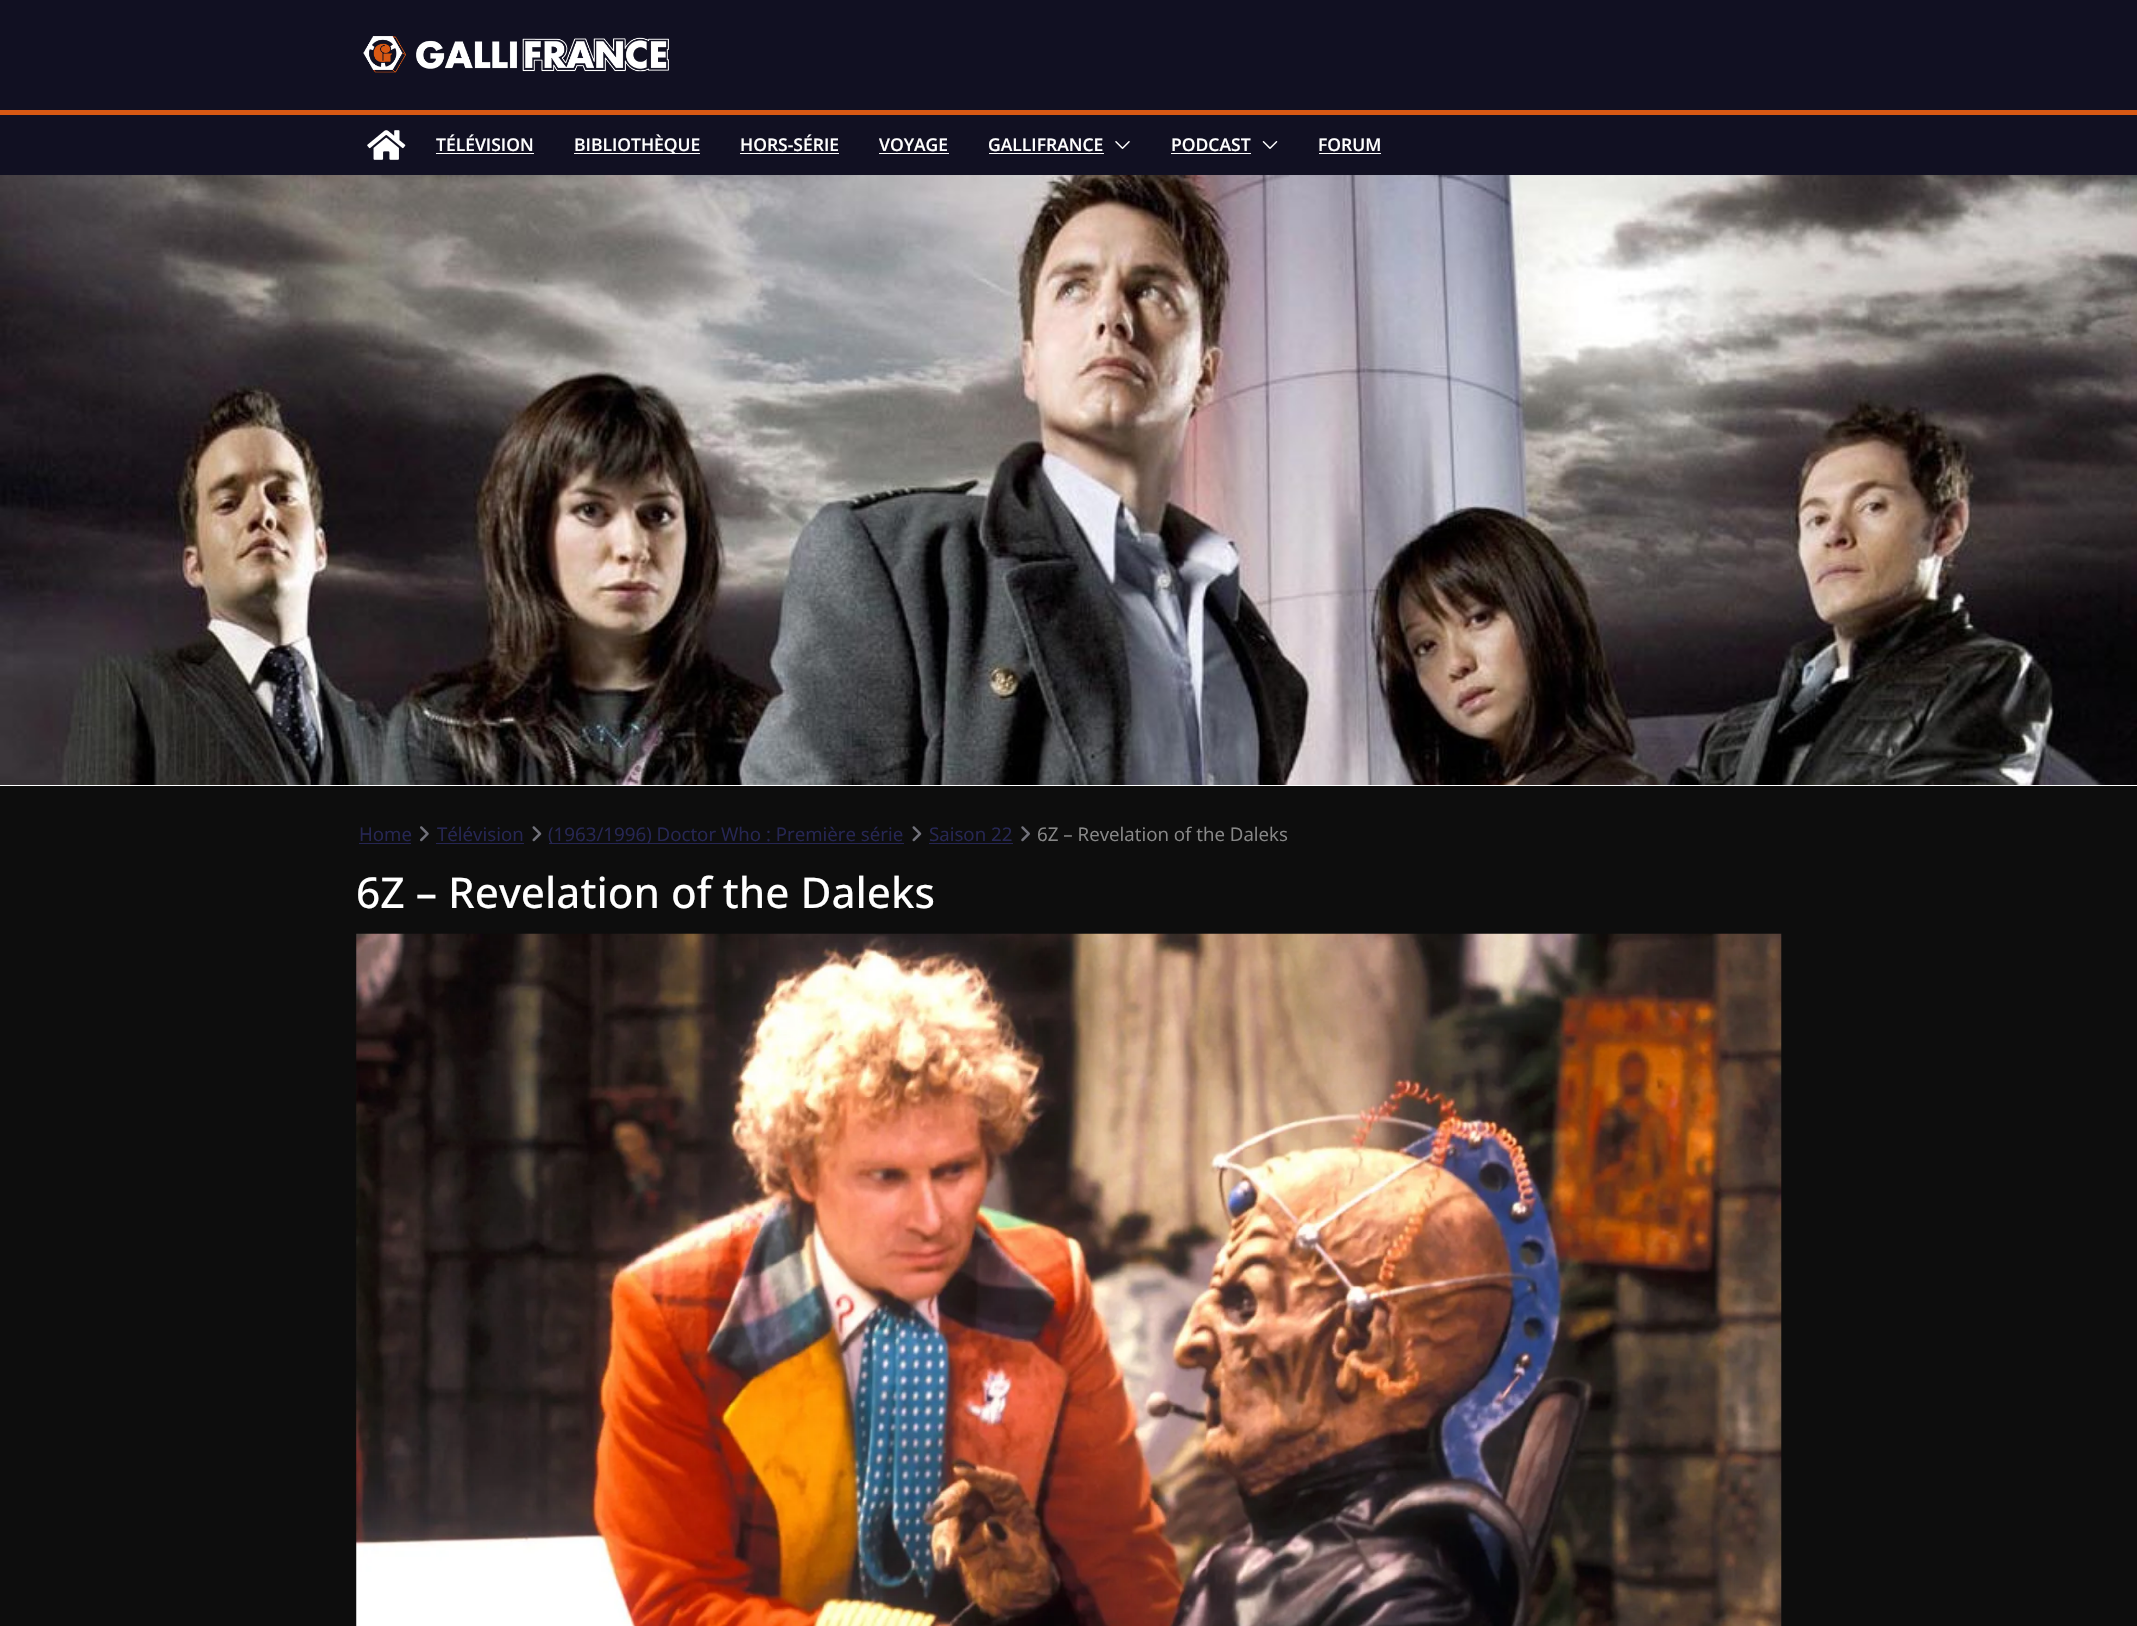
void draw(SkCanvas* c) {
SkPaint p;
p.setAntiAlias(true);
auto F=[&](const char* family, int weight, float size, bool italic = false){SkFontStyle style(weight, SkFontStyle::kNormal_Width,italic ? SkFontStyle::kItalic_Slant : SkFontStyle::kUpright_Slant);SkFont result(fontMgr->matchFamilyStyle(family, style), size);result.setSubpixel(true);return result;};
auto T=[&](const char* s, float x, float y, const SkFont& font){c->drawString(s, x, y, font, p);};
auto R=[&](float x, float y, float w, float h){c->drawRect(SkRect::MakeXYWH(x, y, w, h), p);};
auto I=[&](const char* path, float x, float y, float w, float h){auto image = SkImages::DeferredFromEncodedData(SkData::MakeFromFileName(path));c->drawImageRect(image, SkRect::MakeXYWH(x, y, w, h), SkSamplingOptions());};
c->clear(0xff0d0d0d);
p.setColor(0xff111022);
R(0,0,2137,175);
I("1.png",363,36,306,37);
p.setColor(0xffd75814);
R(0,110,2137,5);
I("2.png",367,130,39,30);
auto f1 = F("Open Sans",600,17.5);
p.setColor(0xffffffff);
T("TÉLÉVISION",436,151,f1);
R(436,153,98,1);
R(574,153,126,1);
T("BIBLIOTHÈQUE",574,151,f1);
T("HORS-SÉRIE",740,151,f1);
R(740,153,99,1);
T("VOYAGE",879,151,f1);
R(879,153,70,1);
T("GALLIFRANCE",988,151,f1);
R(989,153,115,1);
I("3.png",1115,141,15,8);
T("PODCAST",1171,151,f1);
R(1171,153,80,1);
I("4.png",1262,141,16,8);
T("FORUM",1318,151,f1);
R(1319,153,62,1);
I("5.png",0,175,2137,610);
R(0,785,2137,1);
auto f2 = F("Open Sans",400,18.75);
p.setColor(0xff262653);
T("Home",359,841,f2);
R(359,843,52,1);
I("6.png",420,826,9,16);
T("Télévision",437,841,f2);
R(436,843,88,1);
I("7.png",532,826,10,16);
R(549,843,355,1);
T("(1963/1996) Doctor Who : Première série",548,841,f2);
I("7.png",912,826,10,16);
T("Saison 22",929,841,f2);
R(929,843,84,1);
I("8.png",1021,826,9,16);
p.setColor(0xff888888);
T("6Z – Revelation of the Daleks",1037,841,f2);
auto f3 = F("Open Sans",500,42.5);
p.setColor(0xffffffff);
T("6Z – Revelation of the Daleks",356,908,f3);
I("9.png",356,933,1426,693);
}
